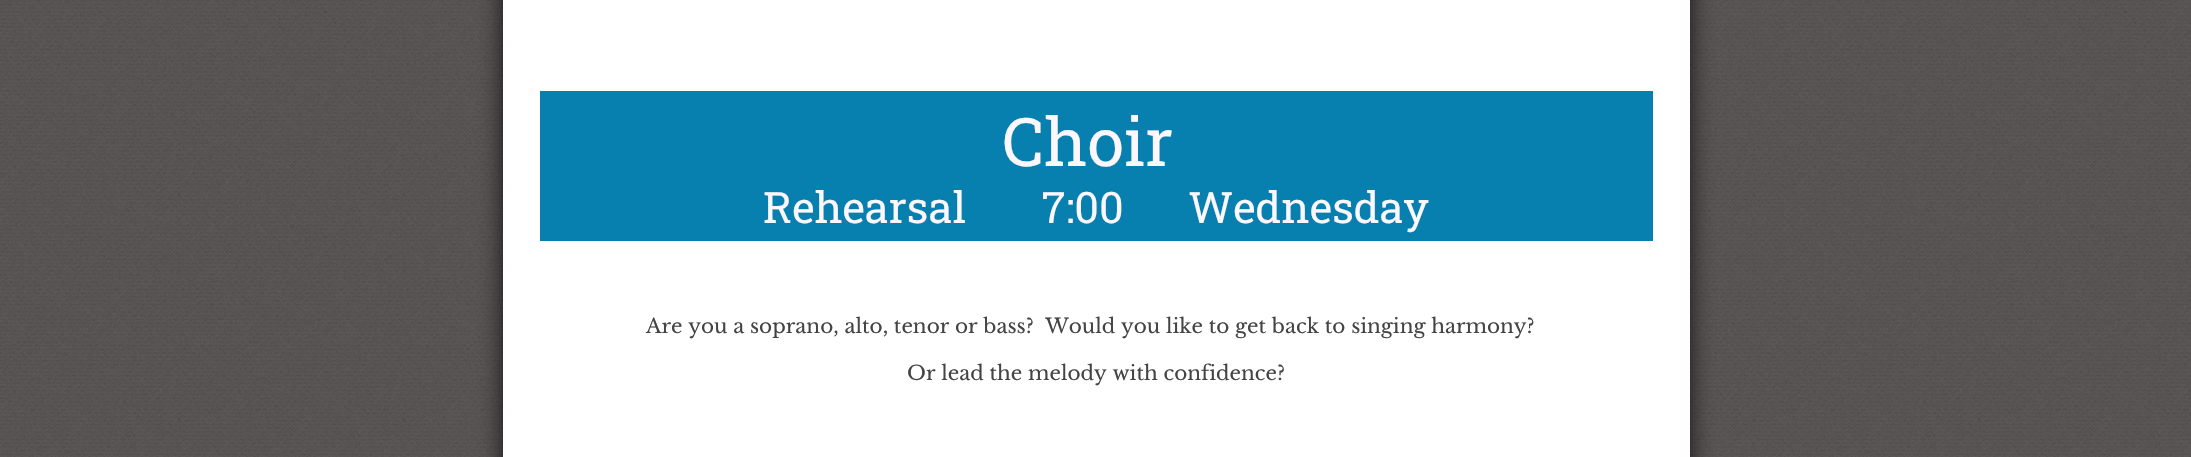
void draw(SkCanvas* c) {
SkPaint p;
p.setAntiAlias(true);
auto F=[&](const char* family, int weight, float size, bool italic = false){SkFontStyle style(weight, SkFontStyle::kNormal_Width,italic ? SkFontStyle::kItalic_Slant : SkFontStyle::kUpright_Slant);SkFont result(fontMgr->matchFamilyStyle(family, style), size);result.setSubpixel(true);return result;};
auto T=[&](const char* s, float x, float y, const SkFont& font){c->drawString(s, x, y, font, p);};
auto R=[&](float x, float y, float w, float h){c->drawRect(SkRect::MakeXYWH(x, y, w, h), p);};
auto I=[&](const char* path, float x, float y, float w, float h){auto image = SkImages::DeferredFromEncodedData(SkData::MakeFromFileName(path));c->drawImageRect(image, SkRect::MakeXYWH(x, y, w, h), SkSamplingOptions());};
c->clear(0xff666262);
I("1.png",0,0,2191,457);
p.setColor(0xcc000000);
p.setMaskFilter(SkMaskFilter::MakeBlur(kNormal_SkBlurStyle, 12.5));
c->drawRoundRect(SkRect::MakeXYWH(503,-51,1187,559),13,13,p);
p.setMaskFilter(nullptr);
p.setColor(0xffffffff);
R(503,0,1187,457);
p.setColor(0xff0780b0);
R(540,91,1113,150);
auto f1 = F("Roboto Slab",400,67);
p.setColor(0xfffcf7fc);
T("Choir",1002,166,f1);
auto f2 = F("Roboto Slab",400,43.3);
T("Rehearsal       7:00      Wednesday",763,223,f2);
auto f3 = F("Libre Baskerville",400,20);
p.setColor(0xff444444);
T("Are you a soprano, alto, tenor or bass?  Would you like to get back to singing harmony?",646,333,f3);
T("Or lead the melody with confidence?",907,380,f3);
}
